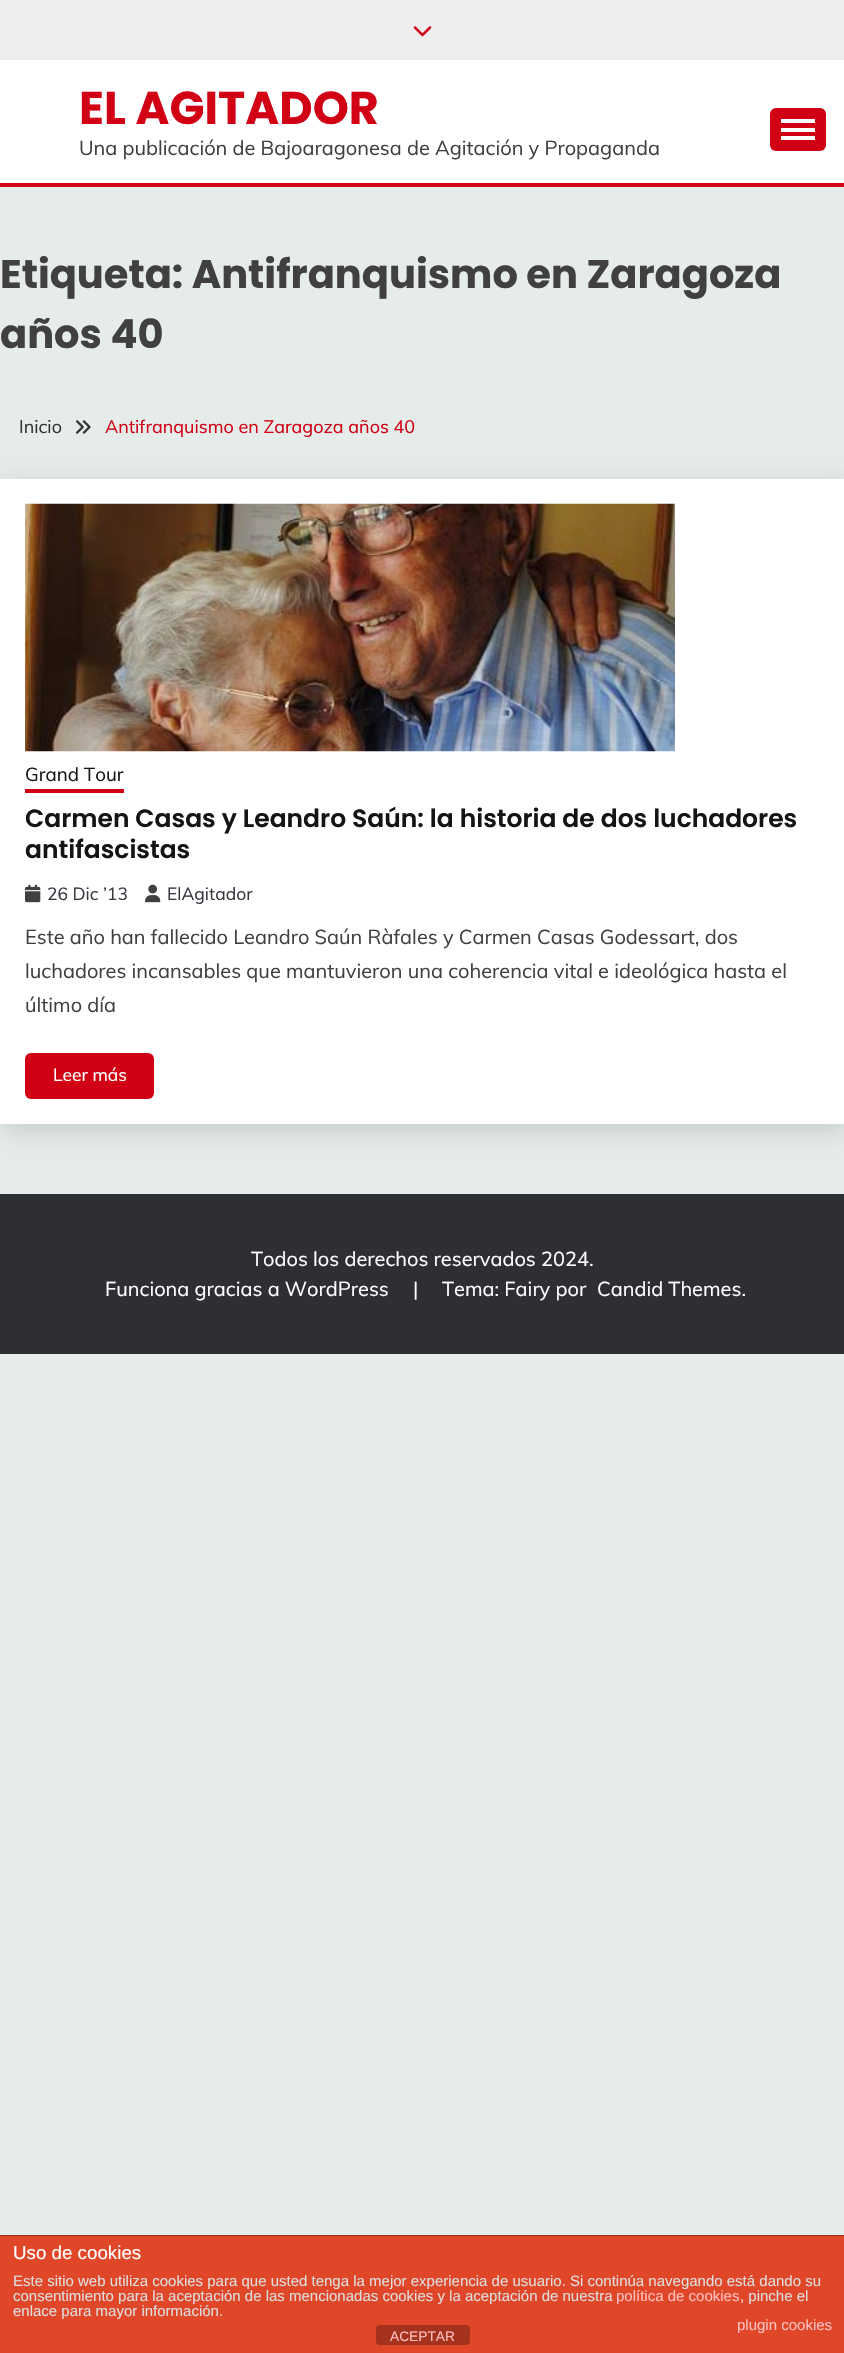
void draw(SkCanvas* c) {
SkPaint p;
p.setAntiAlias(true);
auto F=[&](const char* family, int weight, float size, bool italic = false){SkFontStyle style(weight, SkFontStyle::kNormal_Width,italic ? SkFontStyle::kItalic_Slant : SkFontStyle::kUpright_Slant);SkFont result(fontMgr->matchFamilyStyle(family, style), size);result.setSubpixel(true);return result;};
auto T=[&](const char* s, float x, float y, const SkFont& font){c->drawString(s, x, y, font, p);};
auto R=[&](float x, float y, float w, float h){c->drawRect(SkRect::MakeXYWH(x, y, w, h), p);};
auto Q=[&](float x, float y, float w, float h, float radius){c->drawRoundRect(SkRect::MakeXYWH(x, y, w, h), radius, radius, p);};
auto I=[&](const char* path, float x, float y, float w, float h){auto image = SkImages::DeferredFromEncodedData(SkData::MakeFromFileName(path));c->drawImageRect(image, SkRect::MakeXYWH(x, y, w, h), SkSamplingOptions());};
c->clear(0xffe5ece9);
p.setColor(0xffffffff);
R(0,60,844,123);
p.setColor(0xffeeeeee);
R(0,0,844,60);
I("1.png",413,26,19,11);
auto f1 = F("Poppins",700,46);
p.setColor(0xffd10014);
T("EL AGITADOR",79,124,f1);
auto f2 = F("Muli",400,20);
p.setColor(0xff404040);
T("Una publicación de Bajoaragonesa de Agitación y Propaganda",79,155,f2);
p.setColor(0xffd10014);
Q(770,108,56,43,6);
p.setColor(0xffffffff);
R(781,119,34,4);
R(781,128,34,4);
R(781,136,34,4);
p.setColor(0xffd10014);
R(0,183,844,4);
auto f3 = F("Poppins",700,40);
p.setColor(0xff404040);
T("Etiqueta: Antifranquismo en Zaragoza",0,288,f3);
T("años 40",0,348,f3);
auto f4 = F("Muli",400,18);
p.setColor(0xff333333);
T("Inicio",19,433,f4);
I("2.png",76,420,15,14);
p.setColor(0xffd10014);
T("Antifranquismo en Zaragoza años 40",105,433,f4);
p.setColor(0x24000000);
p.setMaskFilter(SkMaskFilter::MakeBlur(kNormal_SkBlurStyle, 12.5));
c->drawRect(SkRect::MakeXYWH(3,485,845,645),p);
p.setMaskFilter(nullptr);
p.setColor(0xffffffff);
R(0,479,844,645);
I("3.png",25,503,650,249);
auto f5 = F("Muli",400,18.75);
p.setColor(0xff141413);
T("Grand Tour",25,781,f5);
p.setColor(0xffd10014);
R(25,789,99,4);
auto f6 = F("Poppins",600,25);
p.setColor(0xff141413);
T("Carmen Casas y Leandro Saún: la historia de dos luchadores",25,827,f6);
T("antifascistas",25,858,f6);
I("4.png",25,884,16,19);
auto f7 = F("Muli",400,17.5);
p.setColor(0xff37373f);
T("26 Dic ’13",47,900,f7);
I("5.png",145,884,16,19);
T("ElAgitador",167,900,f7);
p.setColor(0xff404040);
T("Este año han fallecido Leandro Saún Ràfales y Carmen Casas Godessart, dos",25,944,f2);
T("luchadores incansables que mantuvieron una coherencia vital e ideológica hasta el",25,978,f2);
T("último día",25,1012,f2);
p.setColor(0xffd10014);
Q(25,1053,129,46,6);
p.setColor(0xffffffff);
T("Leer más",53,1081,f7);
p.setColor(0xff2e2e35);
R(0,1194,844,160);
p.setColor(0xffffffff);
T("Todos los derechos reservados 2024.",251,1266,f2);
T("Funciona gracias a WordPress",105,1296,f2);
T("|",413,1296,f2);
T("Tema: Fairy por",442,1296,f2);
T("Candid Themes.",597,1296,f2);
p.setColor(0xffe04729);
R(0,2236,844,117);
p.setColor(0xff99301b);
R(0,2235,844,1);
auto f8 = F("Liberation Sans",400,18.75);
p.setColor(0xffffffff);
T("Uso de cookies",13,2259,f8);
auto f9 = F("Liberation Sans",400,15);
p.setColor(0xffdddddd);
T("Este sitio web utiliza cookies para que usted tenga la mejor experiencia de usuario. Si continúa navegando está dando su",13,2286,f9);
T("consentimiento para la aceptación de las mencionadas cookies y la aceptación de nuestra",13,2301,f9);
p.setColor(0xfffebebe);
T("política de cookies",616,2301,f9);
p.setColor(0xffdddddd);
T(", pinche el",740,2301,f9);
T("enlace para mayor información.",13,2316,f9);
p.setColor(0xfffebebe);
T("plugin cookies",737,2330,f9);
p.setColor(0xffa5321c);
Q(376,2325,94,20,4);
auto f10 = F("Liberation Sans",400,13.75);
p.setColor(0xfffebebe);
T("ACEPTAR",390,2341,f10);
}
